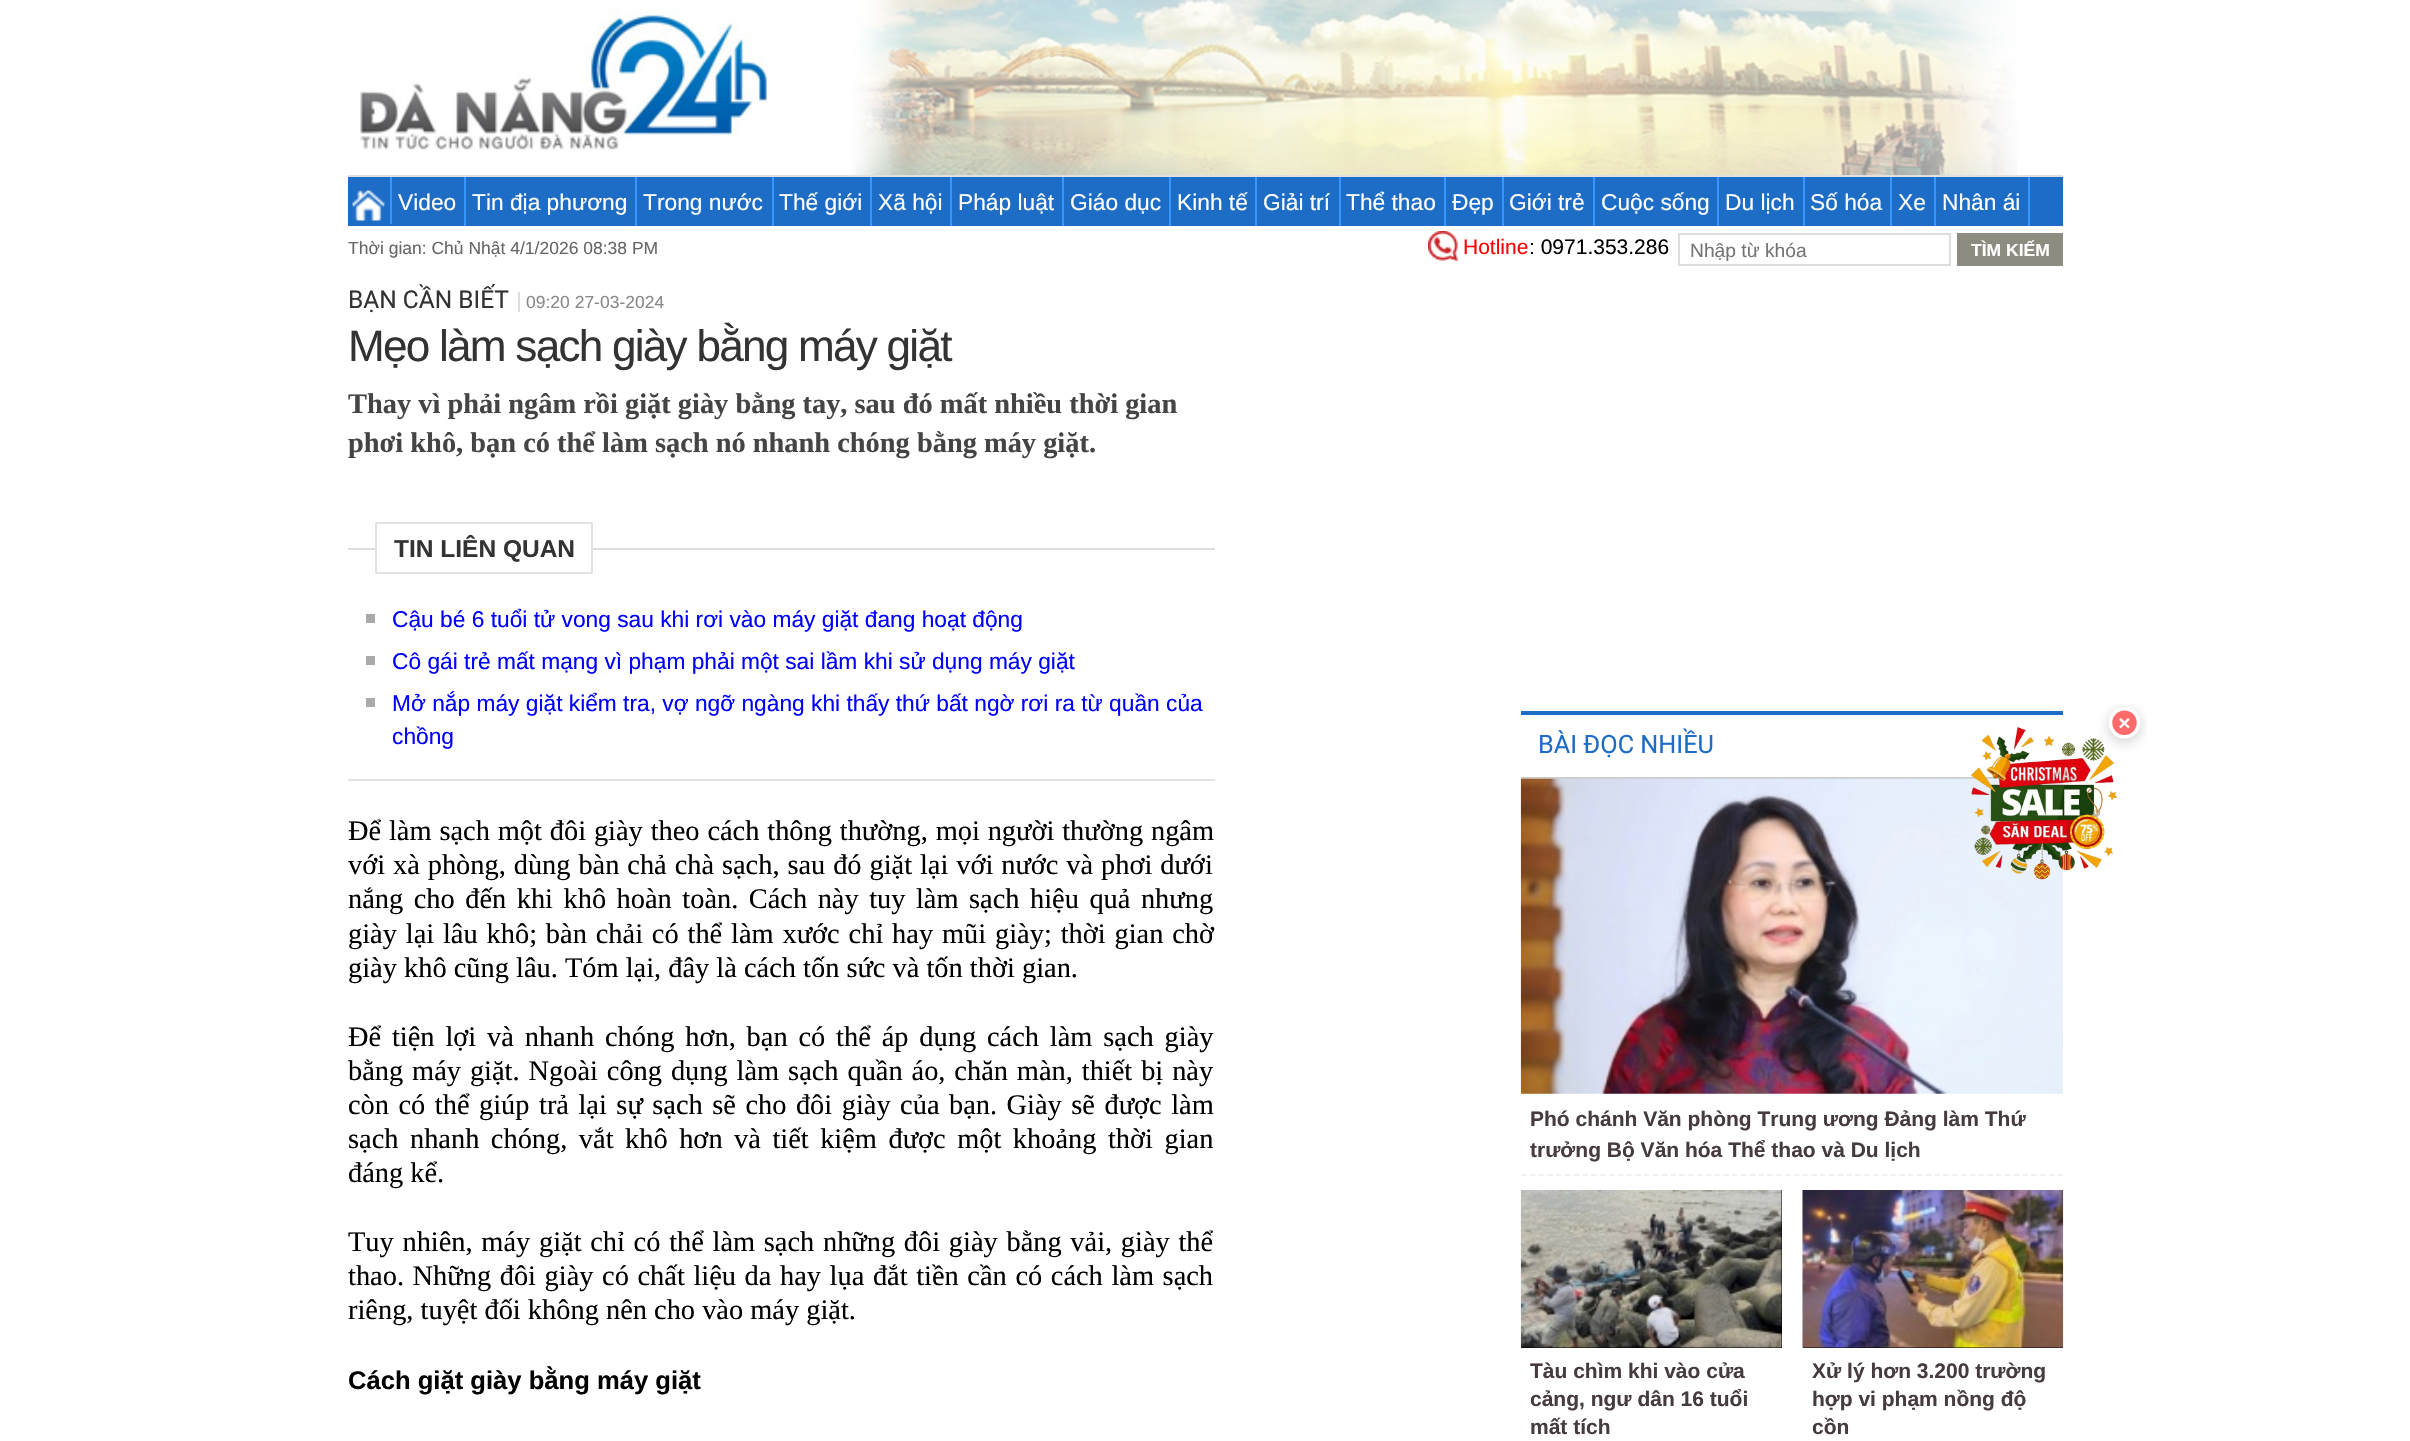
void draw(SkCanvas* c) {
SkPaint p;
p.setAntiAlias(true);
auto F=[&](const char* family, int weight, float size, bool italic = false){SkFontStyle style(weight, SkFontStyle::kNormal_Width,italic ? SkFontStyle::kItalic_Slant : SkFontStyle::kUpright_Slant);SkFont result(fontMgr->matchFamilyStyle(family, style), size);result.setSubpixel(true);return result;};
auto T=[&](const char* s, float x, float y, const SkFont& font){c->drawString(s, x, y, font, p);};
auto L=[&](const char* s, float x, float y, const SkFont& font, const SkPaint& ink, float letter, float word){std::vector<SkGlyphID> glyphs(font.countText(s, strlen(s), SkTextEncoding::kUTF8));std::vector<float> xs(glyphs.size());font.textToGlyphs(s, strlen(s), SkTextEncoding::kUTF8, glyphs);font.getXPos(glyphs, xs, x);float extra = 0;for (size_t i = 0; i < glyphs.size(); i++) {xs[i] += extra;extra += letter + word * (glyphs[i] == font.unicharToGlyph(' '));}c->drawTextBlob(SkTextBlob::MakeFromPosHGlyphs(glyphs, xs, y, font), 0, 0, ink);};
auto R=[&](float x, float y, float w, float h){c->drawRect(SkRect::MakeXYWH(x, y, w, h), p);};
auto I=[&](const char* path, float x, float y, float w, float h){auto image = SkImages::DeferredFromEncodedData(SkData::MakeFromFileName(path));c->drawImageRect(image, SkRect::MakeXYWH(x, y, w, h), SkSamplingOptions());};
auto P=[&](const char* data, bool evenOdd = false){SkPath result = *SkParsePath::FromSVGString(data);if (evenOdd) result.setFillType(SkPathFillType::kEvenOdd);return result;};
c->clear(0xffffffff);
I("1.png",360,9,408,141);
I("2.png",851,0,1166,175);
p.setColor(0xff1d6cc6);
R(348,177,1715,49);
p.setColor(0xffe0e0e0);
R(348,175,1715,2);
p.setColor(0xff3995ff);
R(390,177,2,47);
I("3.png",352,190,33,31);
R(464,177,2,49);
auto f1 = F("Liberation Sans",400,22.75);
p.setColor(0xffffffff);
T("Video",398,210,f1);
p.setColor(0xff3995ff);
R(635,177,2,49);
p.setColor(0xffffffff);
T("Tin địa phương",472,210,f1);
p.setColor(0xff3995ff);
R(772,177,2,49);
p.setColor(0xffffffff);
T("Trong nước",643,210,f1);
p.setColor(0xff3995ff);
R(870,177,2,49);
p.setColor(0xffffffff);
T("Thế giới",779,210,f1);
p.setColor(0xff3995ff);
R(950,177,2,49);
p.setColor(0xffffffff);
T("Xã hội",878,210,f1);
p.setColor(0xff3995ff);
R(1062,177,2,49);
p.setColor(0xffffffff);
T("Pháp luật",958,210,f1);
p.setColor(0xff3995ff);
R(1169,177,2,49);
p.setColor(0xffffffff);
T("Giáo dục",1070,210,f1);
p.setColor(0xff3995ff);
R(1255,177,2,49);
p.setColor(0xffffffff);
T("Kinh tế",1177,210,f1);
p.setColor(0xff3995ff);
R(1339,177,2,49);
p.setColor(0xffffffff);
T("Giải trí",1263,210,f1);
p.setColor(0xff3995ff);
R(1444,177,2,49);
p.setColor(0xffffffff);
T("Thể thao",1346,210,f1);
p.setColor(0xff3995ff);
R(1502,177,2,49);
p.setColor(0xffffffff);
T("Đẹp",1452,210,f1);
p.setColor(0xff3995ff);
R(1593,177,2,49);
p.setColor(0xffffffff);
T("Giới trẻ",1509,210,f1);
p.setColor(0xff3995ff);
R(1717,177,2,49);
p.setColor(0xffffffff);
T("Cuộc sống",1601,210,f1);
p.setColor(0xff3995ff);
R(1803,177,2,49);
p.setColor(0xffffffff);
T("Du lịch",1725,210,f1);
p.setColor(0xff3995ff);
R(1890,177,2,49);
p.setColor(0xffffffff);
T("Số hóa",1810,210,f1);
p.setColor(0xff3995ff);
R(1934,177,2,49);
p.setColor(0xffffffff);
T("Xe",1898,210,f1);
p.setColor(0xff3995ff);
R(2028,177,2,49);
p.setColor(0xffffffff);
T("Nhân ái",1942,210,f1);
I("4.png",2063,176,1,44);
auto f2 = F("Liberation Sans",400,17.5);
p.setColor(0xff666666);
T("Thời gian: Chủ Nhật 4/1/2026 08:38 PM",348,254,f2);
I("5.png",1428,231,30,30);
auto f3 = F("Liberation Sans",400,21);
p.setColor(0xffff0000);
T("Hotline",1463,254,f3);
p.setColor(0xff000000);
T(": 0971.353.286",1529,254,f3);
p.setStroke(true);
p.setStrokeWidth(2);
p.setColor(0xffdddddd);
c->drawRect(SkRect::MakeXYWH(1679,234,271,31),p);
auto f4 = F("Liberation Sans",400,19.25);
p.setStroke(false);
p.setColor(0xff757575);
T("Nhập từ khóa",1690,257,f4);
p.setColor(0xff8e8b80);
R(1957,233,106,33);
auto f5 = F("Liberation Sans",700,17.5);
p.setColor(0xffffffff);
T("TÌM KIẾM",1971,256,f5);
auto f6 = F("Roboto",400,24.5);
p.setColor(0xff333333);
T("BẠN CẦN BIẾT",348,308,f6);
p.setColor(0xff888888);
T("09:20 27-03-2024",526,308,f2);
p.setColor(0xffdddddd);
R(518,292,2,20);
auto f7 = F("Liberation Sans",400,44.1);
p.setColor(0xff333333);
L("Mẹo làm sạch giày bằng máy giặt",348,361,f7,p,-1.75,0);
auto f8 = F("Liberation Serif",700,28.4);
p.setColor(0xff444444);
T("Thay vì phải ngâm rồi giặt giày bằng tay, sau đó mất nhiều thời gian",348,413,f8);
T("phơi khô, bạn có thể làm sạch nó nhanh chóng bằng máy giặt.",348,452,f8);
p.setColor(0xffdddddd);
R(348,548,867,2);
p.setColor(0xffe2e2e2);
R(348,779,867,2);
p.setColor(0xffffffff);
R(377,548,214,2);
p.setStroke(true);
p.setColor(0xffe2e2e2);
c->drawRect(SkRect::MakeXYWH(376,523,216,50),p);
auto f9 = F("Liberation Sans",700,24.5);
p.setStroke(false);
p.setColor(0xff333333);
T("TIN LIÊN QUAN",394,557,f9);
p.setColor(0xffaaaaaa);
R(366,614,9,9);
p.setColor(0xff0000ff);
T("Cậu bé 6 tuổi tử vong sau khi rơi vào máy giặt đang hoạt động",392,627,f1);
p.setColor(0xffaaaaaa);
R(366,656,9,9);
p.setColor(0xff0000ff);
T("Cô gái trẻ mất mạng vì phạm phải một sai lầm khi sử dụng máy giặt",392,669,f1);
p.setColor(0xffaaaaaa);
R(366,698,9,9);
p.setColor(0xff0000ff);
T("Mở nắp máy giặt kiểm tra, vợ ngỡ ngàng khi thấy thứ bất ngờ rơi ra từ quần của",392,711,f1);
T("chồng",392,744,f1);
auto f10 = F("Liberation Serif",400,28.4);
p.setColor(0xff000000);
L("Để làm sạch một đôi giày theo cách thông thường, mọi người thường ngâm",348,840,f10,p,0,.75);
L("với xà phòng, dùng bàn chả chà sạch, sau đó giặt lại với nước và phơi dưới",348,874,f10,p,0,.8);
L("nắng cho đến khi khô hoàn toàn. Cách này tuy làm sạch hiệu quả nhưng",348,908,f10,p,0,3.4);
L("giày lại lâu khô; bàn chải có thể làm xước chỉ hay mũi giày; thời gian chờ",348,943,f10,p,0,1.75);
T("giày khô cũng lâu. Tóm lại, đây là cách tốn sức và tốn thời gian.",348,977,f10);
L("Để tiện lợi và nhanh chóng hơn, bạn có thể áp dụng cách làm sạch giày",348,1046,f10,p,0,3.75);
L("bằng máy giặt. Ngoài công dụng làm sạch quần áo, chăn màn, thiết bị này",348,1080,f10,p,0,1.8);
L("còn có thể giúp trả lại sự sạch sẽ cho đôi giày của bạn. Giày sẽ được làm",348,1114,f10,p,0,2.4);
L("sạch nhanh chóng, vắt khô hơn và tiết kiệm được một khoảng thời gian",348,1148,f10,p,0,4.4);
T("đáng kể.",348,1182,f10);
L("Tuy nhiên, máy giặt chỉ có thể làm sạch những đôi giày bằng vải, giày thể",348,1251,f10,p,0,1.6);
L("thao. Những đôi giày có chất liệu da hay lụa đắt tiền cần có cách làm sạch",348,1285,f10,p,0,1.5);
T("riêng, tuyệt đối không nên cho vào máy giặt.",348,1319,f10);
auto f11 = F("Liberation Sans",700,25.6);
T("Cách giặt giày bằng máy giặt",348,1389,f11);
p.setColor(0xff1d6cc6);
R(1521,711,542,4);
p.setColor(0xffcccccc);
R(1521,777,479,2);
auto f12 = F("Roboto",400,25.25);
p.setColor(0xff1d6cc6);
T("BÀI ĐỌC NHIỀU",1538,753,f12);
p.setStroke(true);
p.setStrokeWidth(1.8);
p.setColor(0xfff1f1f1);
p.setPathEffect(SkDashPathEffect::Make({{5.25f,3.55f}}, 0));
c->drawPath(P("M1521 1175h542"),p);
p.setPathEffect(nullptr);
I("6.png",1520,778,543,316);
auto f13 = F("Liberation Sans",700,21);
p.setStroke(false);
p.setColor(0xff463c3f);
T("Phó chánh Văn phòng Trung ương Đảng làm Thứ",1530,1126,f13);
T("trưởng Bộ Văn hóa Thể thao và Du lịch",1530,1157,f13);
p.setColor(0xff000000);
R(1521,1190,261,158);
I("7.png",1520,1190,262,158);
p.setColor(0xff463c3f);
T("Tàu chìm khi vào cửa",1530,1378,f13);
T("cảng, ngư dân 16 tuổi",1530,1406,f13);
T("mất tích",1530,1434,f13);
p.setColor(0xff000000);
R(1803,1347,260,1);
I("8.png",1802,1190,262,158);
p.setColor(0xff463c3f);
T("Xử lý hơn 3.200 trường",1812,1378,f13);
T("hợp vi phạm nồng độ",1812,1406,f13);
T("cồn",1812,1434,f13);
I("9.png",1971,704,176,176);
}
